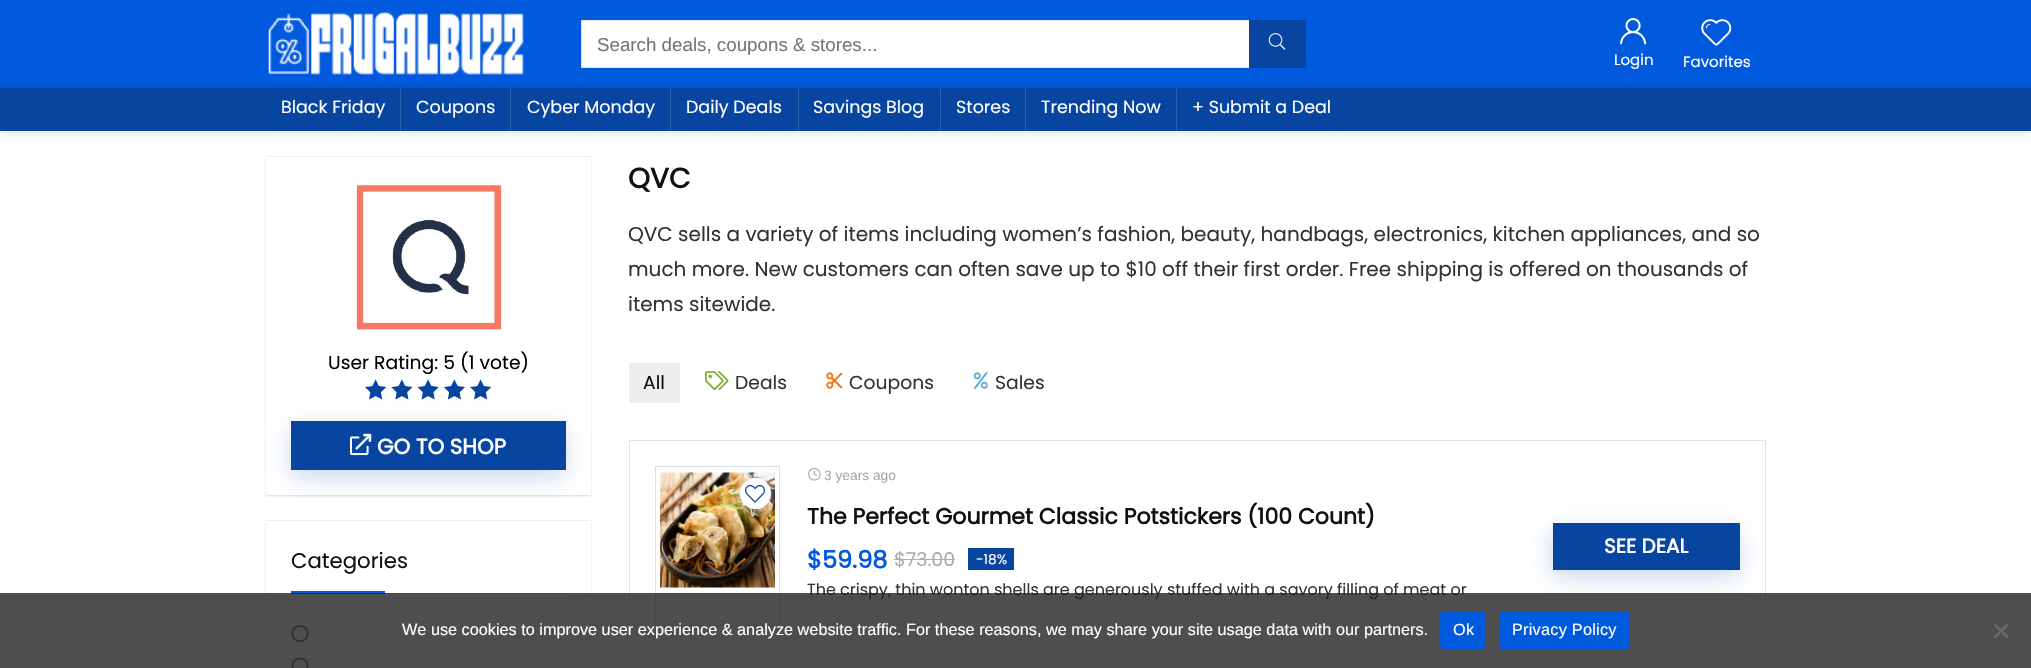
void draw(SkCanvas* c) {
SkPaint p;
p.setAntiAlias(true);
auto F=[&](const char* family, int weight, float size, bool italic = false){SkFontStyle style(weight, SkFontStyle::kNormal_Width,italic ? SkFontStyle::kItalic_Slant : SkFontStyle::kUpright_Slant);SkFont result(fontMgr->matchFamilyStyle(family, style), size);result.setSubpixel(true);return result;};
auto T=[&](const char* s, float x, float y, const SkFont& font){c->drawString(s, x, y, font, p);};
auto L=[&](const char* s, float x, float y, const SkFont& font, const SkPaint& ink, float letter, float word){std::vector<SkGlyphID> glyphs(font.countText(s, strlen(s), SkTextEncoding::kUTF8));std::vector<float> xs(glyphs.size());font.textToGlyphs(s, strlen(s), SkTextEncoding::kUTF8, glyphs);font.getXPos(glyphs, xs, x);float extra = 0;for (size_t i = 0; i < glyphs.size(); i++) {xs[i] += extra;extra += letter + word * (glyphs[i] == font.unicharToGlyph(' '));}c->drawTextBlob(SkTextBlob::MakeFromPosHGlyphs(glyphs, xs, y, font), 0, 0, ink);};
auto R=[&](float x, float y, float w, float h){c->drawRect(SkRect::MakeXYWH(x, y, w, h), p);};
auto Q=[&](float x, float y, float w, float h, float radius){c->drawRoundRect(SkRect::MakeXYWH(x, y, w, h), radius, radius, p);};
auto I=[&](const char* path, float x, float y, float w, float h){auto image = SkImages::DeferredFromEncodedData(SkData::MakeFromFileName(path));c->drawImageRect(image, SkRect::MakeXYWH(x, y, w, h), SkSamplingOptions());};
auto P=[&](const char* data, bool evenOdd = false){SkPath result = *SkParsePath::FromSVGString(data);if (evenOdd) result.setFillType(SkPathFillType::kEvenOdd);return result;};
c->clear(0xffffffff);
p.setColor(0xff0159de);
R(0,0,2031,88);
p.setStroke(true);
p.setStrokeWidth(1);
p.setColor(0x08000000);
c->drawRect(SkRect::MakeXYWH(-.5,86.5,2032,46),p);
p.setStroke(false);
p.setColor(0x1a000000);
p.setMaskFilter(SkMaskFilter::MakeBlur(kNormal_SkBlurStyle, 5));
c->drawRect(SkRect::MakeXYWH(0,89,2031,44),p);
p.setMaskFilter(nullptr);
I("1.png",268,12,256,63);
p.setColor(0xffffffff);
R(582,21,667,46);
p.setStroke(true);
p.setColor(0xffe1e1e1);
c->drawRect(SkRect::MakeXYWH(581.5,20.5,724,47),p);
auto f1 = F("Liberation Sans",400,18.75);
p.setStroke(false);
p.setColor(0xff757575);
T("Search deals, coupons & stores...",597,51,f1);
p.setColor(0xff0745a1);
R(1249,20,57,48);
I("2.png",1268,33,18,17);
I("3.png",1620,18,27,27);
auto f2 = F("Poppins",400,15);
p.setColor(0xffffffff);
T("Login",1614,65,f2);
I("4.png",1701,19,31,27);
T("Favorites",1683,67,f2);
p.setColor(0xff0745a1);
R(0,88,2031,43);
p.setColor(0xff2c61af);
R(400,88,1,43);
auto f3 = F("Poppins",400,17.5);
p.setColor(0xffffffff);
T("Black Friday",281,113,f3);
p.setColor(0xff2c61af);
R(510,88,1,43);
p.setColor(0xffffffff);
T("Coupons",416,113,f3);
p.setColor(0xff2c61af);
R(670,88,1,43);
p.setColor(0xffffffff);
T("Cyber Monday",527,113,f3);
p.setColor(0xff2c61af);
R(798,88,1,43);
p.setColor(0xffffffff);
T("Daily Deals",686,113,f3);
p.setColor(0xff2c61af);
R(940,88,1,43);
p.setColor(0xffffffff);
T("Savings Blog",813,113,f3);
p.setColor(0xff2c61af);
R(1025,88,1,43);
p.setColor(0xffffffff);
T("Stores",956,113,f3);
p.setColor(0xff2c61af);
R(1176,88,1,43);
p.setColor(0xffffffff);
T("Trending Now",1041,113,f3);
T("+ Submit a Deal",1192,113,f3);
auto f4 = F("Poppins",700,28);
p.setColor(0xff111111);
T("QVC",628,188,f4);
auto f5 = F("Poppins",400,20);
p.setColor(0xff333333);
T("QVC sells a variety of items including women’s fashion, beauty, handbags, electronics, kitchen appliances, and so",628,241,f5);
T("much more. New customers can often save up to $10 off their first order. Free shipping is offered on thousands of",628,276,f5);
T("items sitewide.",628,311,f5);
p.setColor(0x26000000);
p.setMaskFilter(SkMaskFilter::MakeBlur(kNormal_SkBlurStyle, 1));
c->drawRect(SkRect::MakeXYWH(266,158,325,338),p);
p.setMaskFilter(nullptr);
p.setColor(0xffffffff);
R(266,157,325,338);
p.setColor(0xffefefef);
R(266,156,325,1);
I("5.png",356,185,146,146);
auto f6 = F("Poppins",400,18.75);
p.setColor(0xff000000);
T("User Rating: 5 (1 vote)",328,369,f6);
I("6.png",365,379,22,21);
I("7.png",391,379,22,21);
I("8.png",417,379,22,21);
I("9.png",443,379,22,21);
I("6.png",470,379,22,21);
p.setColor(0x330745a1);
p.setMaskFilter(SkMaskFilter::MakeBlur(kNormal_SkBlurStyle, 12));
c->drawRect(SkRect::MakeXYWH(290,429,275,49),p);
p.setMaskFilter(nullptr);
p.setColor(0xff0745a1);
R(291,421,275,49);
I("10.png",350,433,22,23);
auto f7 = F("Poppins",700,21.25);
p.setColor(0xffffffff);
T("GO TO SHOP",377,454,f7);
p.setColor(0x26000000);
p.setMaskFilter(SkMaskFilter::MakeBlur(kNormal_SkBlurStyle, 1));
c->drawRect(SkRect::MakeXYWH(266,521,325,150),p);
p.setMaskFilter(nullptr);
p.setColor(0xffffffff);
R(266,521,325,147);
p.setColor(0xffefefef);
R(266,520,325,1);
p.setColor(0xffdddddd);
R(385,593,181,1);
auto f8 = F("Poppins",400,21.25);
p.setColor(0xff111111);
T("Categories",291,568,f8);
p.setColor(0xff0159de);
R(291,591,94,3);
I("11.png",291,625,18,17);
I("12.png",291,657,18,11);
p.setColor(0xffeeeeee);
R(629,363,51,40);
p.setColor(0xff111111);
T("All",643,389,f6);
I("13.png",705,371,24,19);
p.setColor(0xff333333);
T("Deals",735,389,f6);
I("14.png",826,372,17,17);
T("Coupons",849,389,f6);
I("15.png",973,372,15,17);
T("Sales",995,389,f6);
p.setStroke(true);
p.setColor(0xffe3e3e3);
c->drawRect(SkRect::MakeXYWH(629.5,440.5,1136,212),p);
p.setColor(0xffdce0e0);
c->drawRect(SkRect::MakeXYWH(655.5,466.5,124,159),p);
I("17.png",660,472,115,116);
p.setStroke(false);
p.setColor(0xffefefef);
p.setMaskFilter(SkMaskFilter::MakeBlur(kNormal_SkBlurStyle, 6));
c->drawRoundRect(SkRect::MakeXYWH(740,478,31,31),15.5,15.5,p);
p.setMaskFilter(nullptr);
p.setColor(0xffffffff);
c->drawCircle(755.5,493.5,15.5,p);
I("16.png",745,485,20,18);
p.setColor(0xfff0f0f0);
R(656,593,123,1);
I("18.png",808,468,13,13);
auto f9 = F("Liberation Sans",400,13.75);
p.setColor(0xffaaaaaa);
T("3 years ago",824,480,f9);
auto f10 = F("Poppins",700,22);
p.setColor(0xff111111);
T("The Perfect Gourmet Classic Potstickers (100 Count)",807,524,f10);
auto f11 = F("Poppins",700,24);
p.setColor(0xff0159de);
T("$59.98",807,568,f11);
auto f12 = F("Poppins",400,19);
p.setColor(0xffaaaaaa);
T("$73.00",894,566,f12);
p.setColor(0xffadadad);
R(894,559,61,1);
p.setColor(0xff0745a1);
R(968,548,46,22);
auto f13 = F("Poppins",400,13.75);
p.setColor(0xffffffff);
T("-18%",976,564,f13);
p.setColor(0x330745a1);
p.setMaskFilter(SkMaskFilter::MakeBlur(kNormal_SkBlurStyle, 12));
c->drawRect(SkRect::MakeXYWH(1551,530,188,48),p);
p.setMaskFilter(nullptr);
p.setColor(0xff0745a1);
R(1553,523,187,47);
auto f14 = F("Poppins",700,20);
p.setColor(0xffffffff);
T("SEE DEAL",1604,553,f14);
auto f15 = F("Poppins",400,16);
p.setColor(0xff333333);
T("The crispy, thin wonton shells are generously stuffed with a savory filling of meat or",807,595,f15);
p.setColor(0xcc222222);
R(0,593,2031,75);
auto f16 = F("Liberation Sans",400,16.25);
p.setColor(0xffffffff);
T("We use cookies to improve user experience & analyze website traffic. For these reasons, we may share your site usage data with our partners.",402,635,f16);
p.setColor(0xff0159de);
Q(1440,611,46,38,4);
p.setColor(0xffffffff);
L("Ok",1453,635,f16,p,.25,0);
p.setColor(0xff0159de);
Q(1499,611,131,38,4);
p.setColor(0xffffffff);
L("Privacy Policy",1512,635,f16,p,.25,0);
p.setColor(0xff676767);
c->drawPath(P("M2007 623.5l2 1.5l-13.5 13.5l-2-2z"),p);
c->drawPath(P("M1993.5 625l2-1.5l13.5 13l-2 2z"),p);
}
